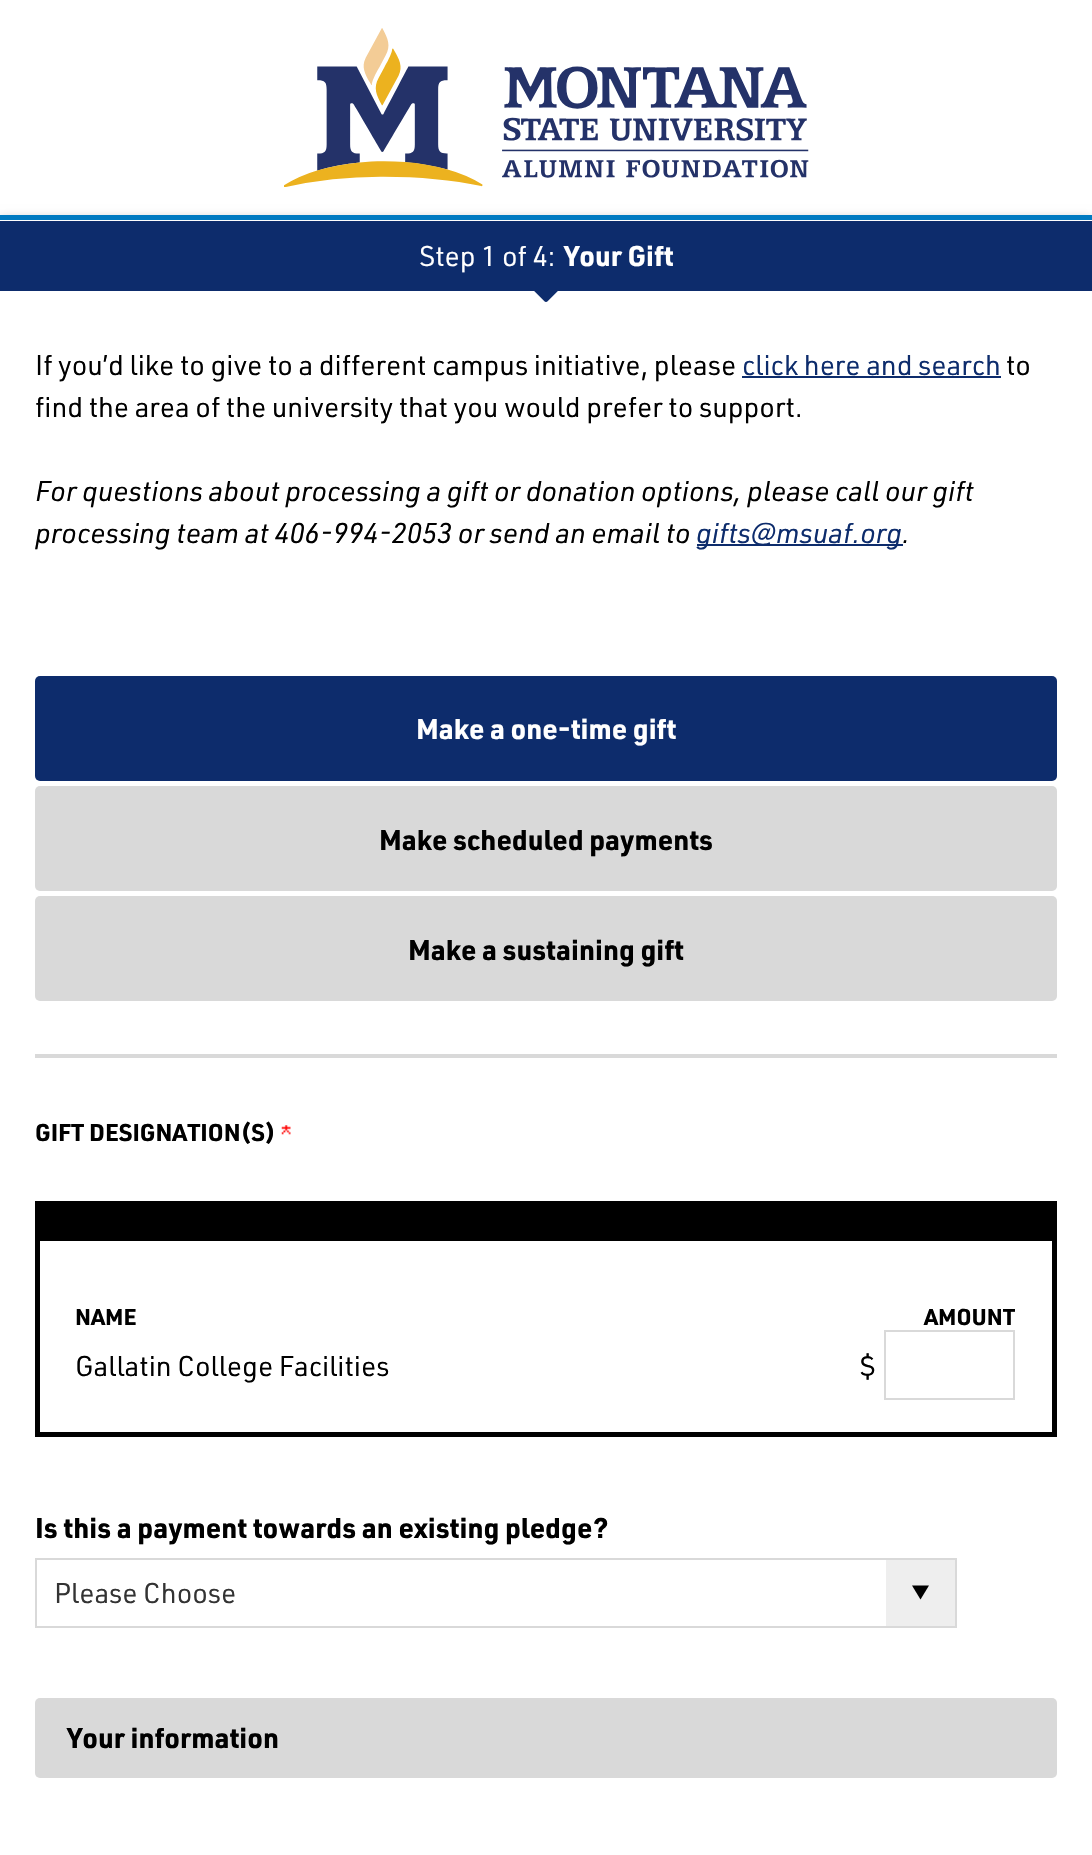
void draw(SkCanvas* c) {
SkPaint p;
p.setAntiAlias(true);
auto F=[&](const char* family, int weight, float size, bool italic = false){SkFontStyle style(weight, SkFontStyle::kNormal_Width,italic ? SkFontStyle::kItalic_Slant : SkFontStyle::kUpright_Slant);SkFont result(fontMgr->matchFamilyStyle(family, style), size);result.setSubpixel(true);return result;};
auto T=[&](const char* s, float x, float y, const SkFont& font){c->drawString(s, x, y, font, p);};
auto R=[&](float x, float y, float w, float h){c->drawRect(SkRect::MakeXYWH(x, y, w, h), p);};
auto Q=[&](float x, float y, float w, float h, float radius){c->drawRoundRect(SkRect::MakeXYWH(x, y, w, h), radius, radius, p);};
auto I=[&](const char* path, float x, float y, float w, float h){auto image = SkImages::DeferredFromEncodedData(SkData::MakeFromFileName(path));c->drawImageRect(image, SkRect::MakeXYWH(x, y, w, h), SkSamplingOptions());};
auto P=[&](const char* data, bool evenOdd = false){SkPath result = *SkParsePath::FromSVGString(data);if (evenOdd) result.setFillType(SkPathFillType::kEvenOdd);return result;};
c->clear(0xffffffff);
I("1.png",284,28,525,159);
p.setColor(0x4d000000);
p.setMaskFilter(SkMaskFilter::MakeBlur(kNormal_SkBlurStyle, 5));
c->drawRect(SkRect::MakeXYWH(0,219,1092,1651),p);
p.setMaskFilter(nullptr);
p.setColor(0xffffffff);
R(0,220,1092,1635);
p.setColor(0xff007ac1);
R(0,215,1092,5);
p.setColor(0xff0d2c6c);
R(0,221,1092,70);
auto f1 = F("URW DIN",400,28);
p.setColor(0xffffffff);
T("Step 1 of 4:",419,266,f1);
auto f2 = F("URW DIN",700,28);
T("Your Gift",564,266,f2);
I("2.png",534,291,24,11);
p.setColor(0xff000000);
T("If you’d like to give to a different campus initiative, please",35,375,f1);
p.setColor(0xff0d2c6c);
T("click here and search",742,375,f1);
R(742,376,259,2);
p.setColor(0xff000000);
T("to",1006,375,f1);
T("find the area of the university that you would prefer to support.",35,417,f1);
auto f3 = F("URW DIN",400,28,true);
T("For questions about processing a gift or donation options, please call our gift",35,501,f3);
T("processing team at 406-994-2053 or send an email to",35,543,f3);
p.setColor(0xff0d2c6c);
R(697,544,206,2);
T("gifts@msuaf.org",696,543,f3);
p.setColor(0xff000000);
T(".",902,543,f3);
p.setColor(0xffd9d9d9);
R(35,1054,1022,4);
p.setColor(0xff0d2c6c);
Q(35,676,1022,105,5);
p.setColor(0xffffffff);
T("Make a one-time gift",416,739,f2);
p.setColor(0xffd9d9d9);
Q(35,786,1022,105,5);
p.setColor(0xff000000);
T("Make scheduled payments",379,850,f2);
p.setColor(0xffd9d9d9);
Q(35,896,1022,105,5);
p.setColor(0xff000000);
T("Make a sustaining gift",408,960,f2);
auto f4 = F("URW DIN",700,23.75);
T("GIFT DESIGNATION(S)",35,1141,f4);
I("3.png",281,1125,10,10);
p.setStroke(true);
p.setStrokeWidth(5);
c->drawRect(SkRect::MakeXYWH(37.5,1203.5,1017,231),p);
p.setStroke(false);
R(40,1206,1012,35);
auto f5 = F("URW DIN",700,22.5);
T("NAME",75,1325,f5);
T("AMOUNT",924,1325,f5);
T("Gallatin College Facilities",75,1376,f1);
T("$",860,1376,f1);
p.setStroke(true);
p.setStrokeWidth(2);
p.setColor(0xffd9d9d9);
c->drawRect(SkRect::MakeXYWH(885,1331,129,68),p);
p.setStroke(false);
p.setColor(0xff000000);
T("Is this a payment towards an existing pledge?",35,1538,f2);
p.setColor(0xffeeeeee);
R(886,1560,69,66);
p.setColor(0xff000000);
c->drawPath(P("M912 1585.5h17l-8.5 14z"),p);
p.setStroke(true);
p.setColor(0xffd9d9d9);
c->drawRect(SkRect::MakeXYWH(36,1559,920,68),p);
p.setStroke(false);
p.setColor(0xff333333);
T("Please Choose",54,1603,f1);
p.setColor(0xffd9d9d9);
Q(35,1698,1022,80,5);
p.setColor(0xff000000);
T("Your information",67,1748,f2);
}
